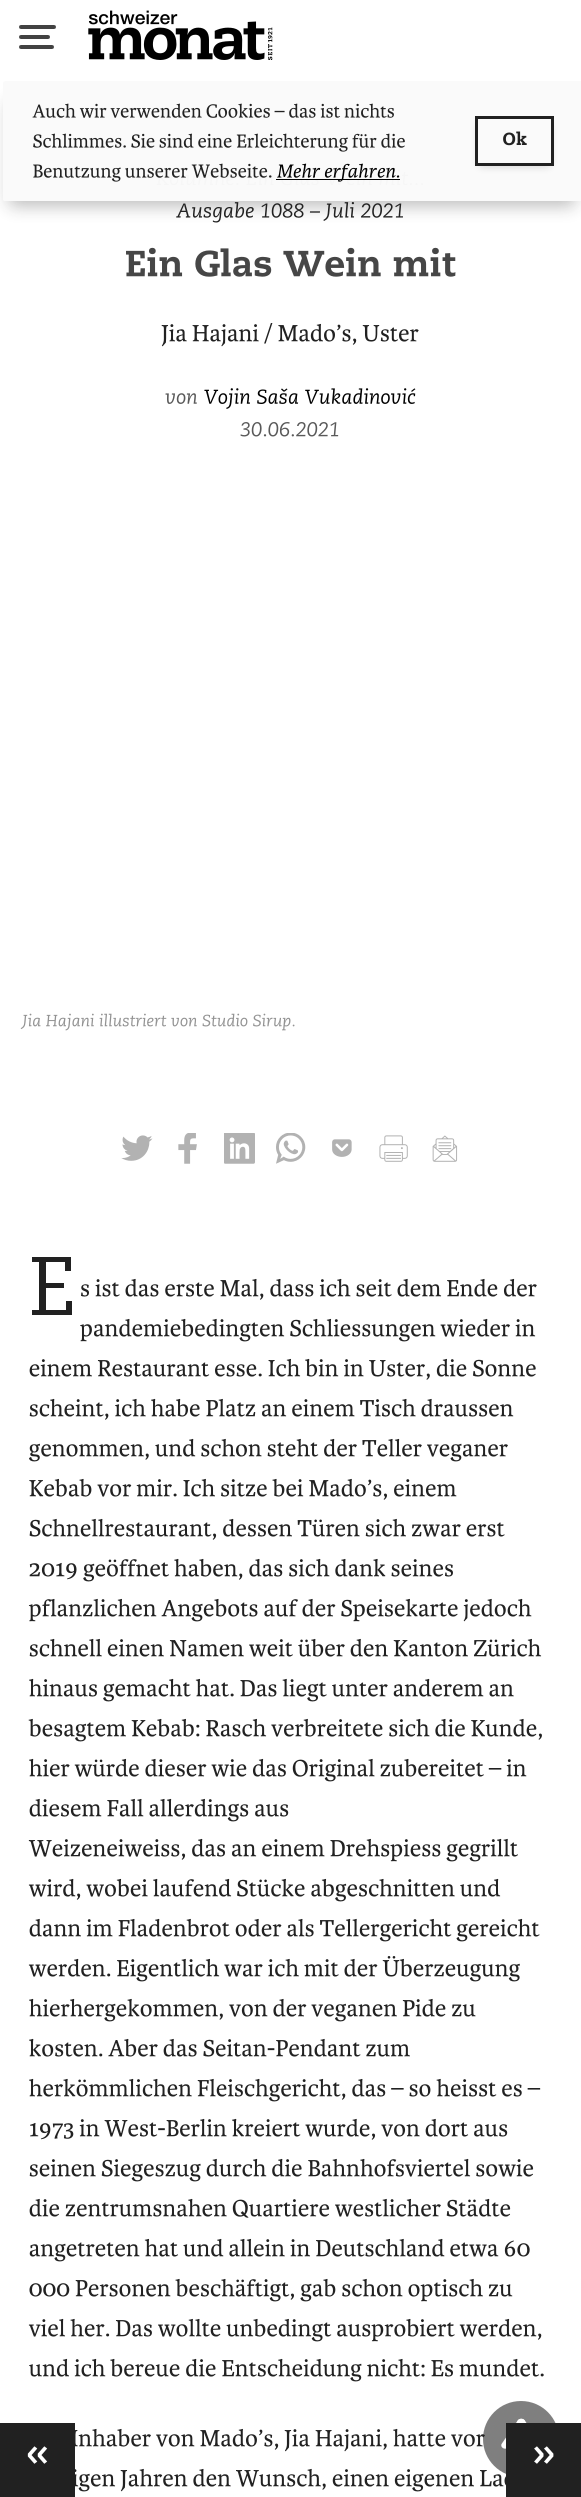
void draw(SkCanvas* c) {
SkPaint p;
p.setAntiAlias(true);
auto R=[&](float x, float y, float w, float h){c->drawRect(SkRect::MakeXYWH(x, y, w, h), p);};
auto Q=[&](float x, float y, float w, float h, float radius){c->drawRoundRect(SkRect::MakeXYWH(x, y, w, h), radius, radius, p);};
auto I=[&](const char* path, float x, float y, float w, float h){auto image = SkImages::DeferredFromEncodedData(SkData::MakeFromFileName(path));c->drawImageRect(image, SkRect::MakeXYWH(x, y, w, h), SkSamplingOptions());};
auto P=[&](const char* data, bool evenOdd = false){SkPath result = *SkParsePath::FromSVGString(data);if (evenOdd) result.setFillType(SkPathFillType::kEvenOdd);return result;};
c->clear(0xffffffff);
p.setColor(0xff424242);
Q(19,25,37,4,2);
Q(19,35,31,4,2);
Q(19,45,35,4,2);
I("1.png",88,10,185,50);
I("8.png",156,169,268,17);
I("9.png",176,202,227,21);
c->save();
c->clipPath(P("M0 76h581v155h-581zm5.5 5h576c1.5 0 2.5 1 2.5 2.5v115c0 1.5-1 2.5-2.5 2.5h-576c-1.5 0-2.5-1-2.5-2.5v-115c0-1.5 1-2.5 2.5-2.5z",true),true);
p.setColor(0x4d212121);
p.setMaskFilter(SkMaskFilter::MakeBlur(kNormal_SkBlurStyle, 8));
c->drawRect(SkRect::MakeXYWH(9,101,566,105),p);
p.setMaskFilter(nullptr);
c->restore();
p.setColor(0xfafafafa);
Q(3,81,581,120,2.5);
I("2.png",32,103,362,15);
I("3.png",33,133,122,15);
I("4.png",159,133,246,19);
I("5.png",33,163,239,19);
p.setColor(0xff000000);
R(276,179,124,1);
I("6.png",277,163,123,19);
c->save();
c->clipPath(P("M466 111h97v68h-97zm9 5h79v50h-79z",true),true);
p.setColor(0x33212121);
p.setMaskFilter(SkMaskFilter::MakeBlur(kNormal_SkBlurStyle, 4));
c->drawRect(SkRect::MakeXYWH(479,124,71,42),p);
p.setMaskFilter(nullptr);
c->restore();
p.setStroke(true);
p.setStrokeWidth(3);
p.setColor(0xff212121);
c->drawRect(SkRect::MakeXYWH(476.5,117.5,76,47),p);
I("7.png",503,131,24,15);
I("10.png",126,247,330,30);
I("11.png",161,323,258,24);
I("12.png",165,393,32,11);
I("13.png",204,388,212,21);
I("14.png",240,422,99,15);
I("15.png",20,1013,275,18);
I("16.png",121,1135,32,26);
I("17.png",178,1133,19,31);
I("18.png",224,1133,31,31);
I("19.png",276,1133,30,31);
I("20.png",332,1139,20,18);
I("21.png",379,1135,29,27);
I("22.png",432,1135,26,27);
p.setStroke(false);
c->drawPath(P("M32 1257v5h7v48h-7v5h40v-14h-6v9h-20v-22h18v-5h-18v-21h19v9h6v-14z"),p);
I("23.png",81,1278,456,22);
I("24.png",80,1318,456,24);
I("25.png",29,1358,507,22);
I("26.png",29,1398,485,22);
I("27.png",29,1438,479,24);
I("28.png",29,1478,428,22);
I("29.png",29,1518,476,22);
I("30.png",29,1558,424,24);
I("31.png",28,1598,504,24);
I("32.png",29,1638,513,19);
I("33.png",29,1678,485,24);
I("34.png",28,1718,514,24);
I("35.png",29,1758,498,24);
I("36.png",29,1798,260,24);
I("37.png",28,1838,490,24);
I("38.png",28,1878,473,24);
I("39.png",29,1918,511,24);
I("40.png",28,1956,492,26);
I("41.png",29,1998,447,24);
I("42.png",29,2038,381,19);
I("43.png",29,2078,512,24);
I("44.png",30,2118,478,22);
I("45.png",29,2158,505,24);
I("46.png",29,2198,482,20);
I("47.png",29,2238,501,24);
I("48.png",29,2278,484,24);
I("49.png",28,2318,514,24);
I("50.png",29,2358,515,24);
I("55.png",483,2401,73,73);
I("51.png",75,2428,410,24);
I("52.png",75,2468,431,24);
R(0,2423,75,74);
I("53.png",27,2446,21,18);
R(506,2423,75,74);
I("54.png",534,2446,20,18);
}
